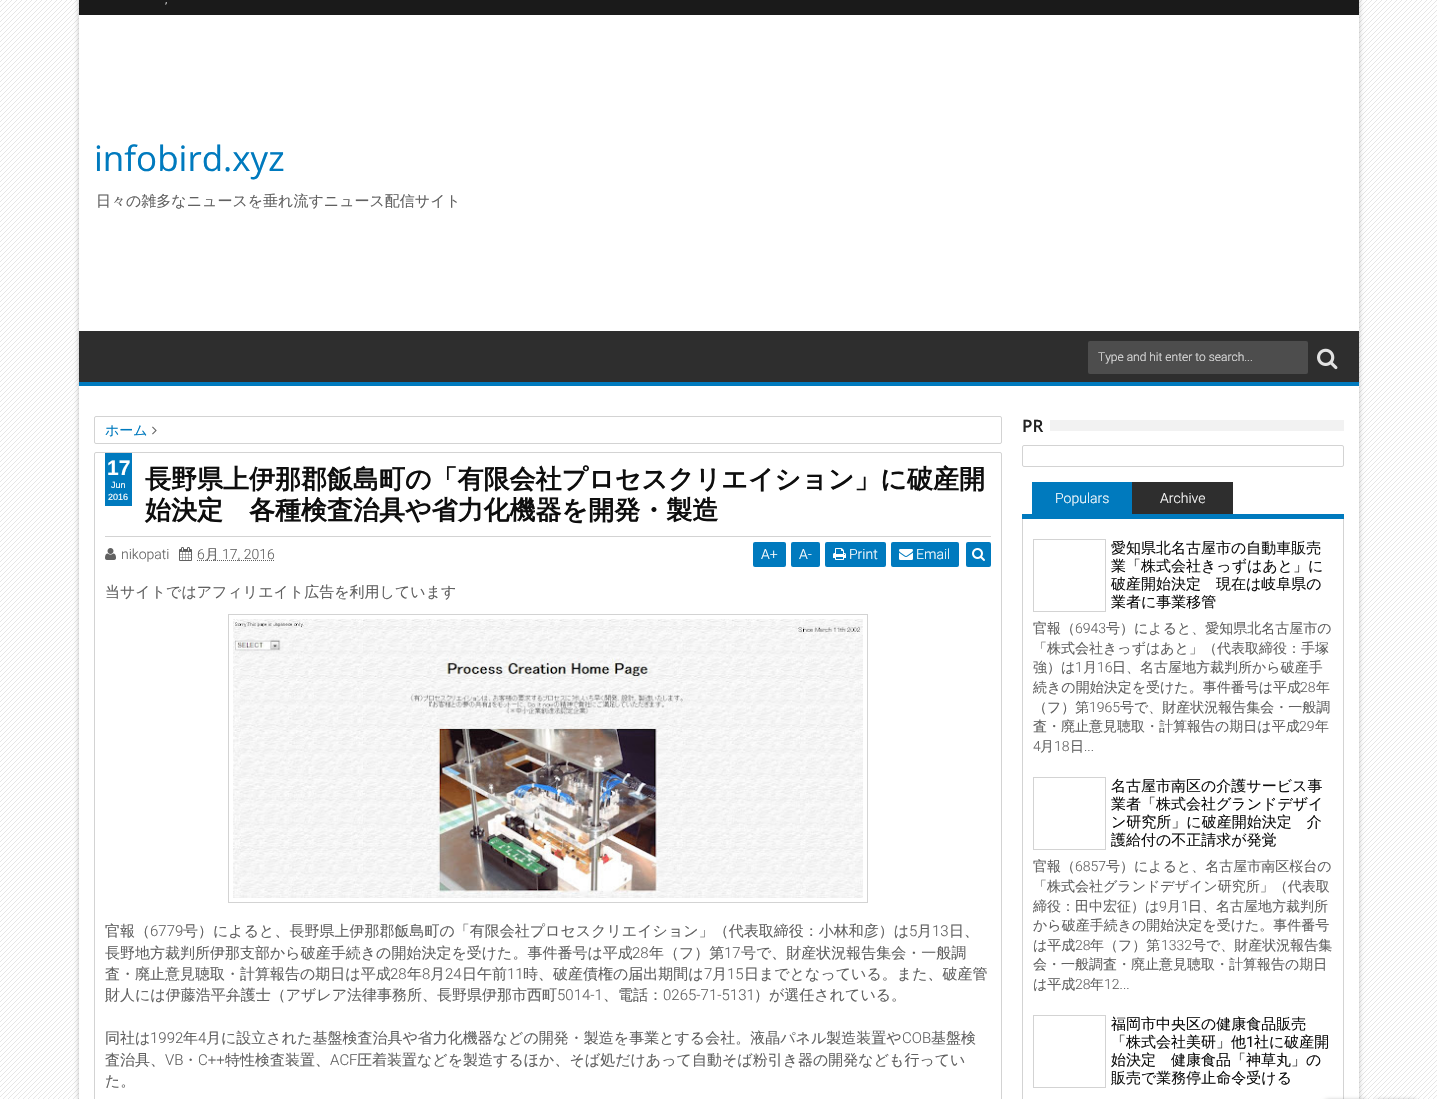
void draw(SkCanvas* c) {
SkPaint p;
p.setAntiAlias(true);
auto F=[&](const char* family, int weight, float size, bool italic = false){SkFontStyle style(weight, SkFontStyle::kNormal_Width,italic ? SkFontStyle::kItalic_Slant : SkFontStyle::kUpright_Slant);SkFont result(fontMgr->matchFamilyStyle(family, style), size);result.setSubpixel(true);return result;};
auto T=[&](const char* s, float x, float y, const SkFont& font){c->drawString(s, x, y, font, p);};
auto R=[&](float x, float y, float w, float h){c->drawRect(SkRect::MakeXYWH(x, y, w, h), p);};
auto Q=[&](float x, float y, float w, float h, float radius){c->drawRoundRect(SkRect::MakeXYWH(x, y, w, h), radius, radius, p);};
auto I=[&](const char* path, float x, float y, float w, float h){auto image = SkImages::DeferredFromEncodedData(SkData::MakeFromFileName(path));c->drawImageRect(image, SkRect::MakeXYWH(x, y, w, h), SkSamplingOptions());};
auto P=[&](const char* data, bool evenOdd = false){SkPath result = *SkParsePath::FromSVGString(data);if (evenOdd) result.setFillType(SkPathFillType::kEvenOdd);return result;};
c->clear(0xffffffff);
I("1.png",0,0,1437,1099);
p.setColor(0x40000000);
p.setMaskFilter(SkMaskFilter::MakeBlur(kNormal_SkBlurStyle, 2.5));
c->drawRect(SkRect::MakeXYWH(79,-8,1280,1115),p);
p.setMaskFilter(nullptr);
p.setColor(0xffffffff);
R(79,15,1280,1084);
p.setColor(0xff1a1a1a);
R(79,0,1280,15);
auto f1 = F("Roboto",300,12);
p.setColor(0xffe2e2e2);
T(",",165,3,f1);
auto f2 = F("Open Sans",400,35);
p.setColor(0xff007abe);
T("infobird.xyz",94,171,f2);
auto f3 = F("WenQuanYi Zen Hei",500,15);
p.setColor(0xff616161);
T("日々の雑多なニュースを垂れ流すニュース配信サイト",96,206,f3);
p.setColor(0xff2e2e2e);
R(79,331,1280,51);
p.setColor(0xff007abe);
R(79,382,1280,4);
p.setColor(0xff4d4d4d);
Q(1088,341,220,33,2);
p.setColor(0xffe2e2e2);
T("Type and hit enter to search...",1098,361,f1);
I("2.png",1317,348,21,22);
p.setStroke(true);
p.setStrokeWidth(1);
p.setColor(0xffd3d3d3);
c->drawRoundRect(SkRect::MakeXYWH(94.5,416.5,907,27),1.5,1.5,p);
auto f4 = F("WenQuanYi Zen Hei",500,14);
p.setStroke(false);
p.setColor(0xff007abe);
T("ホーム",105,435,f4);
I("3.png",152,426,5,9);
p.setStroke(true);
p.setColor(0xffd3d3d3);
c->drawRoundRect(SkRect::MakeXYWH(94.5,452.5,907,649),1.5,1.5,p);
p.setStroke(false);
p.setColor(0xff007abe);
R(105,453,27,53);
auto f5 = F("Liberation Sans",700,21);
p.setColor(0xffffffff);
T("17",107,475,f5);
auto f6 = F("Liberation Sans",400,9);
T("Jun",111,488,f6);
T("2016",108,500,f6);
p.setColor(0xffd3d3d3);
R(105,536,886,1);
auto f7 = F("WenQuanYi Zen Hei",700,26);
p.setColor(0xff0e0e0e);
T("長野県上伊那郡飯島町の「有限会社プロセスクリエイション」に破産開",145,488,f7);
T("始決定　各種検査治具や省力化機器を開発・製造",145,519,f7);
I("4.png",105,548,11,12);
auto f8 = F("Roboto",300,14);
p.setColor(0xff616161);
T("nikopati",121,559,f8);
I("5.png",179,547,13,14);
T("6",197,559,f8);
p.setStroke(true);
p.setPathEffect(SkDashPathEffect::Make({{1,1}}, 0));
c->drawPath(P("M197 560.5h78"),p);
p.setPathEffect(nullptr);
p.setStroke(false);
T("月",205,559,f4);
T("17, 2016",222,559,f8);
p.setColor(0xff007abe);
Q(753,542,33,25,2);
p.setColor(0xffffffff);
T("A+",761,559,f8);
p.setColor(0xff007abe);
Q(791,542,29,25,2);
p.setColor(0xffffffff);
T("A-",799,559,f8);
p.setColor(0xff007abe);
Q(825,542,61,25,2);
I("6.png",833,548,13,12);
p.setColor(0xffffffff);
T("Print",849,559,f8);
p.setColor(0xff007abe);
Q(891,542,68,25,2);
I("7.png",899,549,14,11);
p.setColor(0xffffffff);
T("Email",916,559,f8);
p.setColor(0xff007abe);
Q(966,542,25,25,2);
I("8.png",972,548,13,13);
p.setColor(0xff616161);
T("当サイトではアフィリエイト広告を利用しています",105,597,f3);
p.setStroke(true);
p.setColor(0xffd3d3d3);
c->drawRect(SkRect::MakeXYWH(228.5,614.5,639,288),p);
I("9.png",233,619,630,279);
p.setStroke(false);
p.setColor(0xff616161);
T("官報（",105,936,f3);
auto f9 = F("Roboto",300,15);
T("6779",150,936,f9);
T("号）によると、長野県上伊那郡飯島町の「有限会社プロセスクリエイション」（代表取締役：小林和彦）は",183,936,f3);
T("5",909,936,f9);
T("月",917,936,f3);
T("13",932,936,f9);
T("日、",949,936,f3);
T("長野地方裁判所伊那支部から破産手続きの開始決定を受けた。事件番号は平成",105,958,f3);
T("28",632,958,f9);
T("年（フ）第",649,958,f3);
T("17",724,958,f9);
T("号で、財産状況報告集会・一般調",741,958,f3);
T("査・廃止意見聴取・計算報告の期日は平成",105,979,f3);
T("28",390,979,f9);
T("年",407,979,f3);
T("8",422,979,f9);
T("月",430,979,f3);
T("24",445,979,f9);
T("日午前",462,979,f3);
T("11",507,979,f9);
T("時、破産債権の届出期間は",523,979,f3);
T("7",704,979,f9);
T("月",712,979,f3);
T("15",727,979,f9);
T("日までとなっている。また、破産管",744,979,f3);
T("財人には伊藤浩平弁護士（アザレア法律事務所、長野県伊那市西町",105,1000,f3);
T("5014-1",557,1000,f9);
T("、電話：",603,1000,f3);
T("0265-71-5131",663,1000,f9);
T("）が選任されている。",754,1000,f3);
T("同社は",105,1043,f3);
T("1992",150,1043,f9);
T("年",183,1043,f3);
T("4",198,1043,f9);
T("月に設立された基盤検査治具や省力化機器などの開発・製造を事業とする会社。液晶パネル製造装置や",206,1043,f3);
T("COB",902,1043,f9);
T("基盤検",931,1043,f3);
T("査治具、",105,1065,f3);
T("VB",165,1065,f9);
T("・",183,1065,f3);
T("C++",198,1065,f9);
T("特性検査装置、",225,1065,f3);
T("ACF",330,1065,f9);
T("圧着装置などを製造するほか、そば処だけあって自動そば粉引き器の開発なども行ってい",357,1065,f3);
T("た。",105,1086,f3);
auto f10 = F("Open Sans",600,17);
p.setColor(0xff222222);
T("PR",1022,432,f10);
p.setColor(0xfff2f2f2);
R(1050,420,294,11);
p.setStroke(true);
p.setColor(0xffd3d3d3);
c->drawRoundRect(SkRect::MakeXYWH(1022.5,445.5,321,21),1.5,1.5,p);
p.setStroke(false);
p.setColor(0xff007abe);
R(1022,514,322,5);
R(1032,482,100,32);
p.setColor(0xffffffff);
T("Populars",1055,503,f8);
p.setColor(0xff2e2e2e);
R(1132,482,101,32);
p.setColor(0xffffffff);
T("Archive",1160,503,f8);
p.setColor(0xffd3d3d3);
R(1343,519,1,580);
R(1022,519,1,580);
p.setStroke(true);
c->drawRect(SkRect::MakeXYWH(1033.5,539.5,72,72),p);
p.setStroke(false);
p.setColor(0xff0e0e0e);
T("愛知県北名古屋市の自動車販売",1111,553,f3);
T("業「株式会社きっずはあと」に",1111,571,f3);
T("破産開始決定　現在は岐阜県の",1111,589,f3);
T("業者に事業移管",1111,607,f3);
p.setColor(0xff616161);
T("官報（",1033,633,f4);
T("6943",1075,633,f8);
T("号）によると、愛知県北名古屋市の",1106,633,f4);
T("「株式会社きっずはあと」（代表取締役：手塚",1033,653,f4);
T("強）は",1033,672,f4);
T("1",1075,672,f8);
T("月",1083,672,f4);
T("16",1097,672,f8);
T("日、名古屋地方裁判所から破産手",1112,672,f4);
T("続きの開始決定を受けた。事件番号は平成",1033,692,f4);
T("28",1300,692,f8);
T("年",1316,692,f4);
T("（フ）第",1033,712,f4);
T("1965",1089,712,f8);
T("号で、財産状況報告集会・一般調",1120,712,f4);
T("査・廃止意見聴取・計算報告の期日は平成",1033,731,f4);
T("29",1299,731,f8);
T("年",1315,731,f4);
T("4",1033,751,f8);
T("月",1040,751,f4);
T("18",1054,751,f8);
T("日",1070,751,f4);
T("...",1084,751,f8);
p.setStroke(true);
p.setColor(0xffd3d3d3);
c->drawRect(SkRect::MakeXYWH(1033.5,777.5,72,72),p);
p.setStroke(false);
p.setColor(0xff0e0e0e);
T("名古屋市南区の介護サービス事",1111,791,f3);
T("業者「株式会社グランドデザイ",1111,809,f3);
T("ン研究所」に破産開始決定　介",1111,827,f3);
T("護給付の不正請求が発覚",1111,845,f3);
p.setColor(0xff616161);
T("官報（",1033,871,f4);
T("6857",1075,871,f8);
T("号）によると、名古屋市南区桜台の",1106,871,f4);
T("「株式会社グランドデザイン研究所」（代表取",1033,891,f4);
T("締役：田中宏征）は",1033,911,f4);
T("9",1159,911,f8);
T("月",1167,911,f4);
T("1",1181,911,f8);
T("日、名古屋地方裁判所",1188,911,f4);
T("から破産手続きの開始決定を受けた。事件番号",1033,930,f4);
T("は平成",1033,950,f4);
T("28",1075,950,f8);
T("年（フ）第",1090,950,f4);
T("1332",1161,950,f8);
T("号で、財産状況報告集",1192,950,f4);
T("会・一般調査・廃止意見聴取・計算報告の期日",1033,969,f4);
T("は平成",1033,989,f4);
T("28",1075,989,f8);
T("年",1090,989,f4);
T("12...",1104,989,f8);
p.setStroke(true);
p.setColor(0xffd3d3d3);
c->drawRect(SkRect::MakeXYWH(1033.5,1015.5,72,72),p);
p.setStroke(false);
p.setColor(0xff0e0e0e);
T("福岡市中央区の健康食品販売",1111,1029,f3);
T("「株式会社美研」他",1111,1047,f3);
auto f11 = F("Roboto",400,15);
T("1",1246,1047,f11);
T("社に破産開",1254,1047,f3);
T("始決定　健康食品「神草丸」の",1111,1065,f3);
T("販売で業務停止命令受ける",1111,1083,f3);
p.setColor(0x80000000);
p.setMaskFilter(SkMaskFilter::MakeBlur(kNormal_SkBlurStyle, 2.5));
c->drawRoundRect(SkRect::MakeXYWH(1325,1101,42,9),3,3,p);
p.setMaskFilter(nullptr);
p.setMaskFilter(SkMaskFilter::MakeBlur(kNormal_SkBlurStyle, 2.5));
c->drawRoundRect(SkRect::MakeXYWH(1375,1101,42,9),3,3,p);
p.setMaskFilter(nullptr);
}
